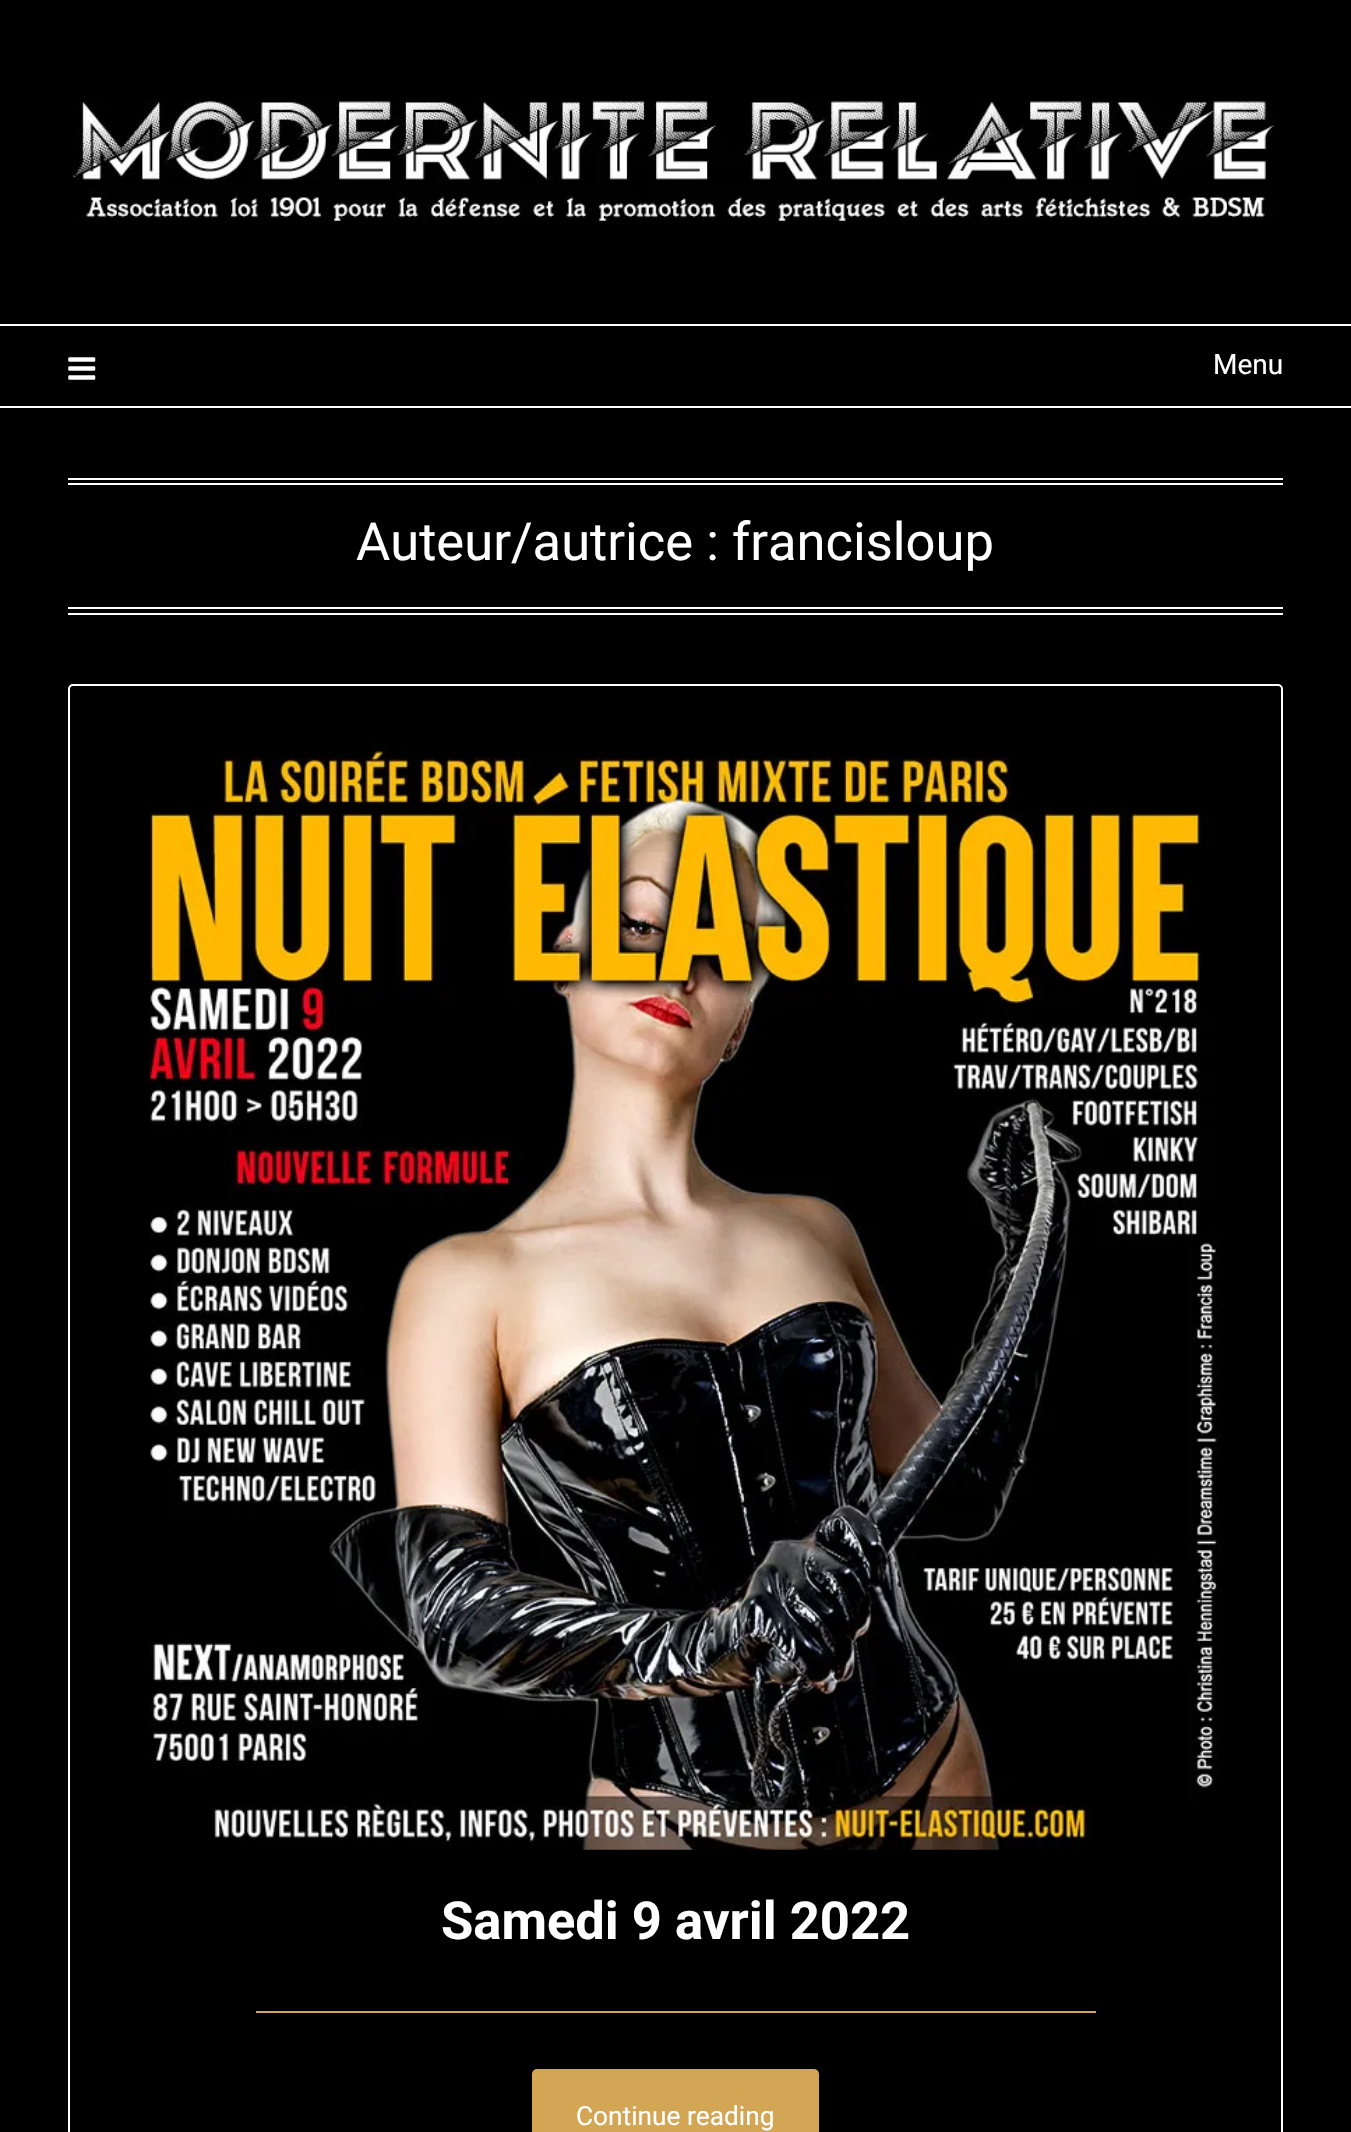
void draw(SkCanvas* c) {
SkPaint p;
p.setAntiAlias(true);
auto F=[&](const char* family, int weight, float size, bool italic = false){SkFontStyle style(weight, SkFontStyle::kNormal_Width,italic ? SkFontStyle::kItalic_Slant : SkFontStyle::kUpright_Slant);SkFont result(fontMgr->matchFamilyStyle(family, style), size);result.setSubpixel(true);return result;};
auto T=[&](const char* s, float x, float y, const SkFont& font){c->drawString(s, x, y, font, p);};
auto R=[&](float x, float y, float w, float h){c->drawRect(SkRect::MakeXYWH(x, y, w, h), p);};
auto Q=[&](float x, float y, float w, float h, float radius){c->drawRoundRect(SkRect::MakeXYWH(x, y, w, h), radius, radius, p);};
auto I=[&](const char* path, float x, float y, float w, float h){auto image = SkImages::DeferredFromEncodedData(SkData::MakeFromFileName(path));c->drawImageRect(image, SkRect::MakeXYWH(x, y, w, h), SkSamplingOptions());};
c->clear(0xff000000);
I("1.png",73,101,1203,122);
p.setColor(0xffffffff);
R(0,324,1351,2);
R(0,406,1351,2);
I("2.png",68,357,28,23);
auto f1 = F("Roboto",400,28);
T("Menu",1213,374,f1);
R(68,478,1215,2);
R(68,483,1215,2);
R(68,607,1215,2);
R(68,613,1215,2);
auto f2 = F("Roboto",400,52.5);
T("Auteur/autrice : francisloup",356,560,f2);
p.setStroke(true);
p.setStrokeWidth(2);
c->drawRoundRect(SkRect::MakeXYWH(69,685,1213,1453),4,4,p);
I("3.png",149,746,1073,1104);
auto f3 = F("Roboto",700,52.5);
p.setStroke(false);
T("Samedi 9 avril 2022",441,1939,f3);
p.setColor(0xffd3a655);
R(256,2011,840,2);
Q(532,2069,287,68,5);
auto f4 = F("Roboto",400,26.25);
p.setColor(0xffffffff);
T("Continue reading",576,2125,f4);
}
